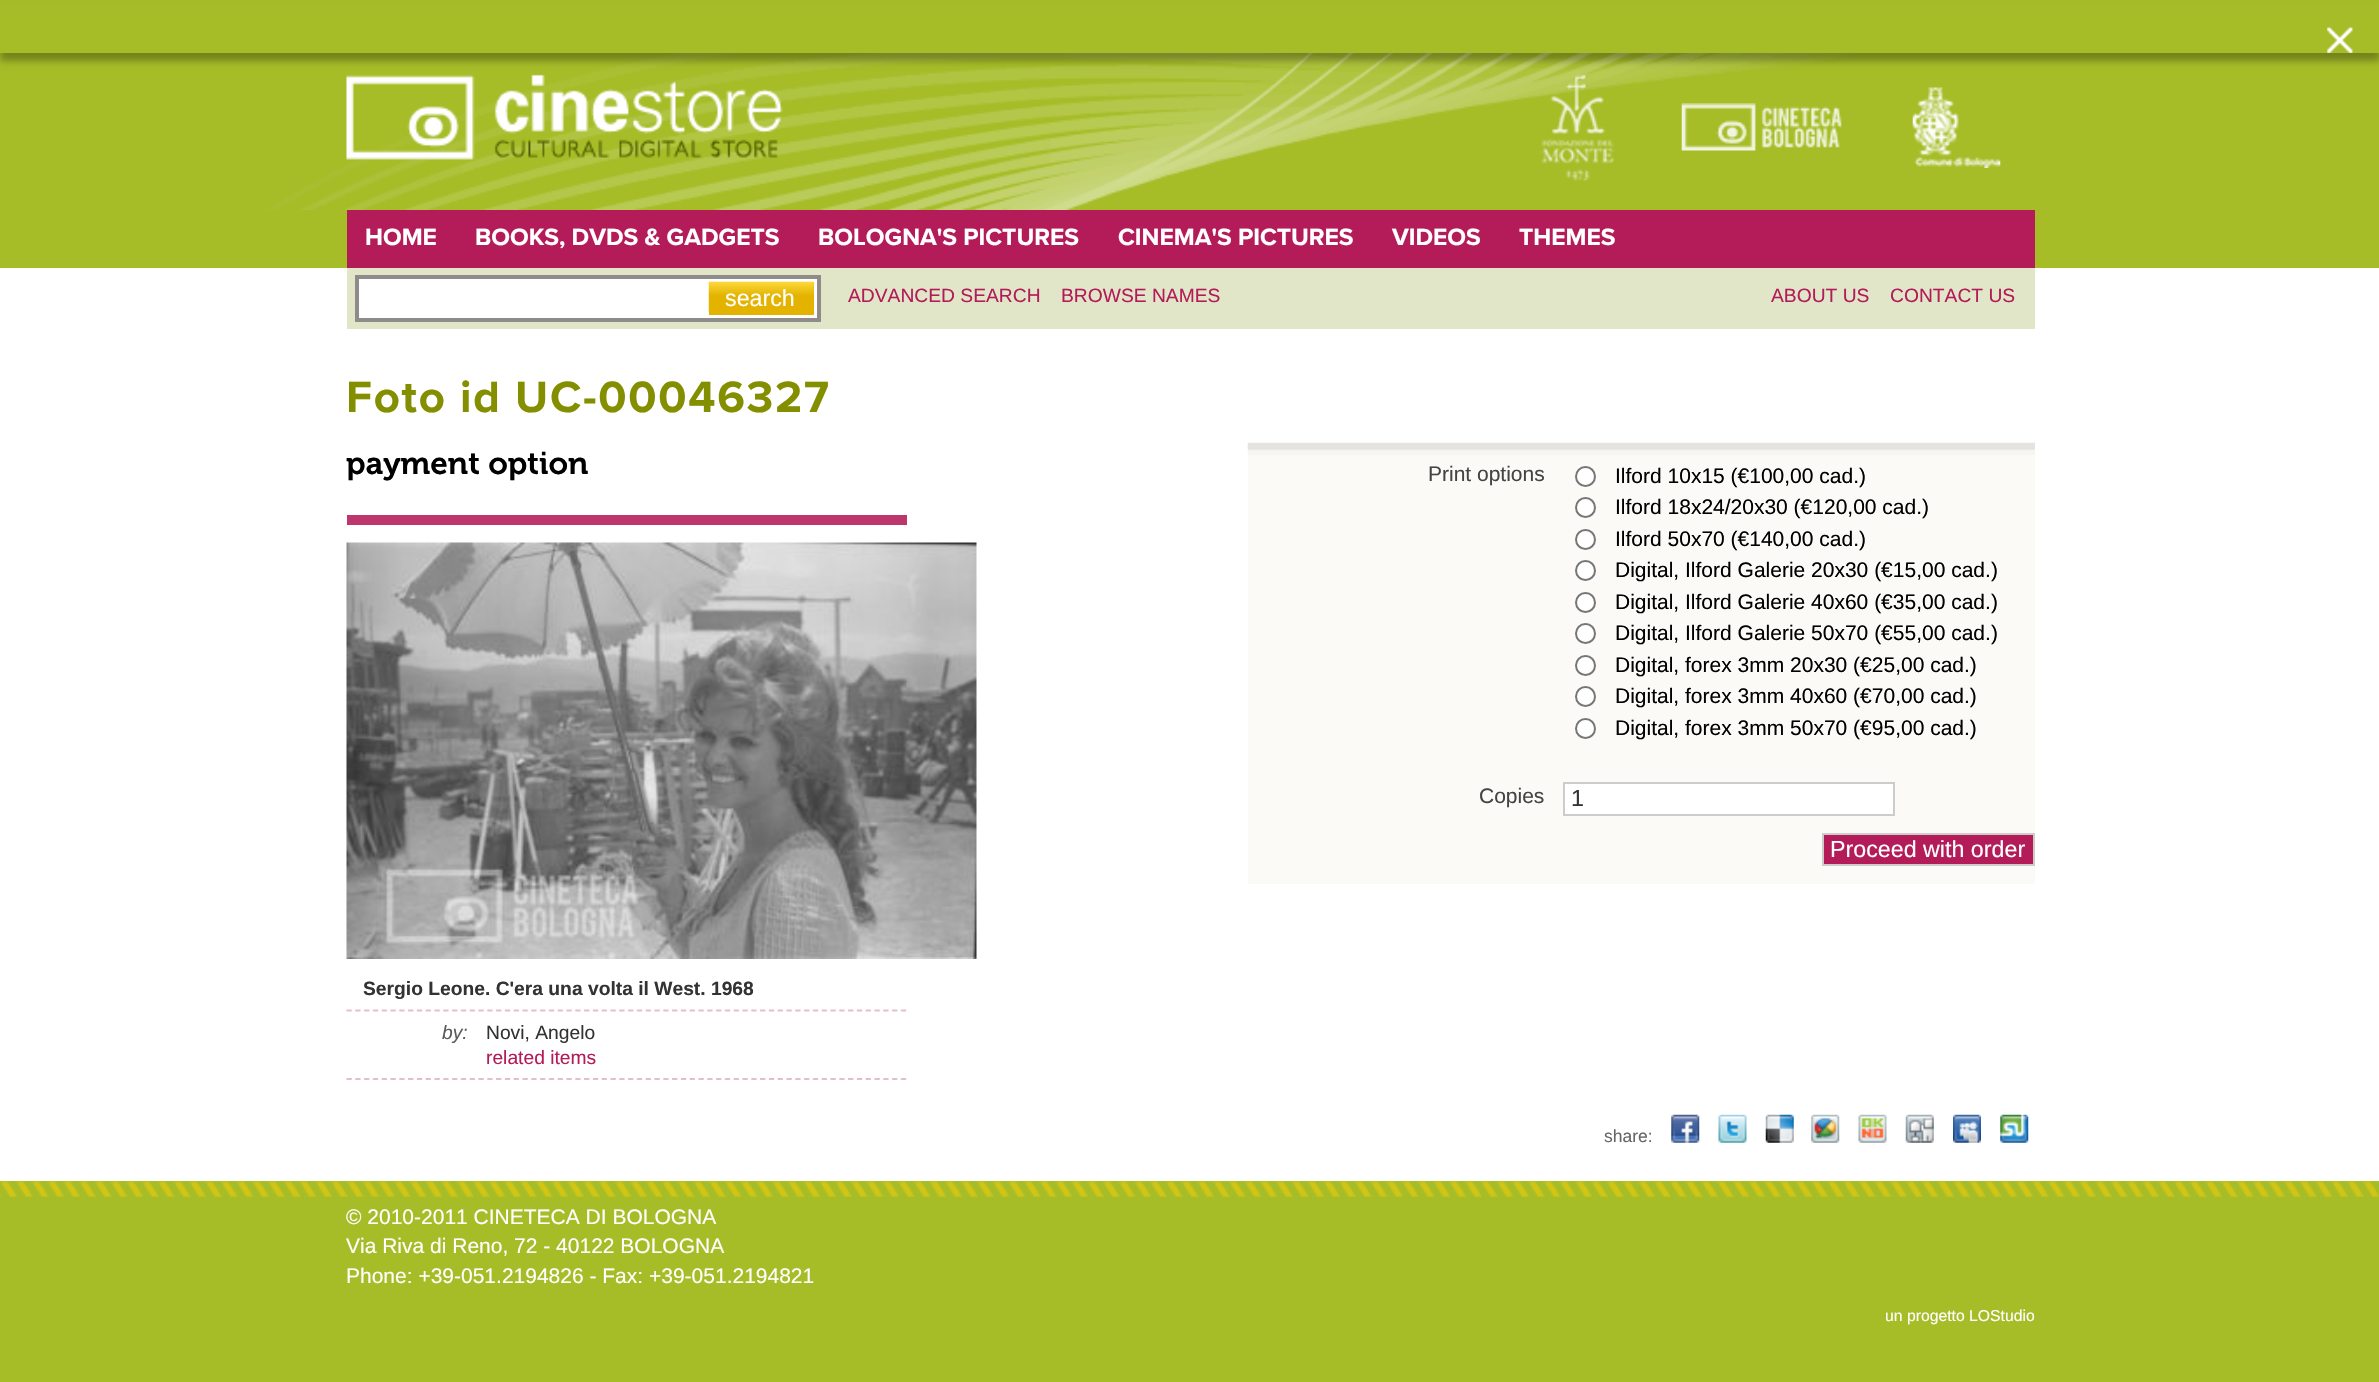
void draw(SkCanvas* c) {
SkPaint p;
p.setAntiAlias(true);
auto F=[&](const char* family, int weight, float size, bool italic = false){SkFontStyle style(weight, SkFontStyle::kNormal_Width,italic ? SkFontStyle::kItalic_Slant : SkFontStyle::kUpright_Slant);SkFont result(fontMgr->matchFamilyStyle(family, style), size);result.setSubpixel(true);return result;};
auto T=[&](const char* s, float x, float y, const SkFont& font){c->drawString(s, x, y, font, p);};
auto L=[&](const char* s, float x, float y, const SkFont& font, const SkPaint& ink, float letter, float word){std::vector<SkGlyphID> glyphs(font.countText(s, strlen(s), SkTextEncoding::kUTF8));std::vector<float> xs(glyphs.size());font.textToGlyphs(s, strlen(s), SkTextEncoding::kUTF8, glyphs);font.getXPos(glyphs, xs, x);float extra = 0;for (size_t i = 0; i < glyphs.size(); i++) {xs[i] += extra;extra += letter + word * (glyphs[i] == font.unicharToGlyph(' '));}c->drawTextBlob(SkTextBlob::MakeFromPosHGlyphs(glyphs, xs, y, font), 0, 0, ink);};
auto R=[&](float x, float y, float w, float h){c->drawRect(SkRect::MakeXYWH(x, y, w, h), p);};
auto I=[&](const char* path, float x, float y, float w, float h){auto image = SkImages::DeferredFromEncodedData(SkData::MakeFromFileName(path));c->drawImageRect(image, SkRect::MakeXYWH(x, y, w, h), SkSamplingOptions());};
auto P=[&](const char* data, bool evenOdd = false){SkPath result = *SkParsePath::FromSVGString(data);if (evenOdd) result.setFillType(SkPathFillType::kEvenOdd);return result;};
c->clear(0xffa6bd28);
I("2.png",266,53,1588,157);
p.setColor(0x4d000000);
p.setMaskFilter(SkMaskFilter::MakeBlur(kNormal_SkBlurStyle, 3.5));
c->drawRect(SkRect::MakeXYWH(0,9,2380,52),p);
p.setMaskFilter(nullptr);
p.setColor(0xffa6bd28);
R(0,3,2379,50);
I("1.png",2327,27,26,26);
I("3.png",346,74,437,86);
I("4.png",1540,74,75,107);
I("5.png",1681,103,162,48);
I("6.png",1912,87,89,81);
p.setColor(0xffb41b59);
R(347,210,1688,58);
auto f1 = F("Proxima Nova",700,24.5);
p.setColor(0xffffffff);
T("HOME",365,245,f1);
T("BOOKS, DVDS & GADGETS",475,245,f1);
T("BOLOGNA'S PICTURES",818,245,f1);
T("CINEMA'S PICTURES",1118,245,f1);
T("VIDEOS",1392,245,f1);
T("THEMES",1519,245,f1);
R(0,268,2379,913);
p.setColor(0xffe1e6c9);
R(347,268,1688,61);
p.setColor(0xffffffff);
c->drawRect(SkRect::MakeXYWH(357,277,462,43),p);
p.setStroke(true);
p.setStrokeWidth(4);
p.setColor(0xff8e8b88);
c->drawRect(SkRect::MakeXYWH(357,277,462,43),p);
p.setStroke(false);
p.setColor(0xffe3b300);
R(709,282,105,33);
I("7.png",708,281,106,31);
auto f2 = F("Liberation Sans",400,23.25);
p.setColor(0xffffffff);
T("search",725,306,f2);
auto f3 = F("Liberation Sans",400,19.25);
p.setColor(0xffb41b59);
T("ADVANCED SEARCH",848,302,f3);
T("BROWSE NAMES",1061,302,f3);
T("ABOUT US",1771,302,f3);
T("CONTACT US",1890,302,f3);
auto f4 = F("Proxima Nova",700,45.5);
p.setColor(0xff848f00);
L("Foto id UC-00046327",346,412,f4,p,1.75,0);
p.setColor(0xffbd376d);
R(347,515,560,10);
auto f5 = F("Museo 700",600,31.5);
p.setColor(0xff000000);
T("payment option",346,474,f5);
I("8.png",346,542,631,417);
p.setStroke(true);
p.setStrokeWidth(1.8);
p.setColor(0xffe3bfce);
p.setPathEffect(SkDashPathEffect::Make({{5.25f,3.55f}}, 0));
c->drawPath(P("M346.5 1010.5h560"),p);
p.setPathEffect(nullptr);
auto f6 = F("Liberation Sans",700,19.25);
p.setStroke(false);
p.setColor(0xff333333);
T("Sergio Leone. C'era una volta il West. 1968",363,995,f6);
p.setStroke(true);
p.setColor(0xffe3bfce);
p.setPathEffect(SkDashPathEffect::Make({{5.25f,3.55f}}, 0));
c->drawPath(P("M346.5 1079h560"),p);
p.setPathEffect(nullptr);
auto f7 = F("Liberation Sans",400,19.25,true);
p.setStroke(false);
p.setColor(0xff5c5c5c);
T("by:",442,1039,f7);
p.setColor(0xff333333);
T("Novi, Angelo",486,1039,f3);
p.setColor(0xffb41b59);
T("related items",486,1064,f3);
p.setColor(0xfffcfaf7);
R(1248,455,787,429);
I("9.png",1247,442,788,13);
auto f8 = F("Liberation Sans",400,21);
p.setColor(0xff444444);
T("Print options",1428,481,f8);
p.setColor(0xffffffff);
c->drawCircle(1585.5,476.5,9.5,p);
p.setStroke(true);
p.setStrokeWidth(2);
p.setColor(0xff767676);
c->drawCircle(1585.5,476.5,9.5,p);
p.setStroke(false);
p.setColor(0xff000000);
T("Ilford 10x15 (€100,00 cad.)",1615,483,f8);
p.setColor(0xffffffff);
c->drawCircle(1585.5,507.5,9.5,p);
p.setStroke(true);
p.setColor(0xff767676);
c->drawCircle(1585.5,507.5,9.5,p);
p.setStroke(false);
p.setColor(0xff000000);
T("Ilford 18x24/20x30 (€120,00 cad.)",1615,514,f8);
p.setColor(0xffffffff);
c->drawCircle(1585.5,539.5,9.5,p);
p.setStroke(true);
p.setColor(0xff767676);
c->drawCircle(1585.5,539.5,9.5,p);
p.setStroke(false);
p.setColor(0xff000000);
T("Ilford 50x70 (€140,00 cad.)",1615,546,f8);
p.setColor(0xffffffff);
c->drawCircle(1585.5,570.5,9.5,p);
p.setStroke(true);
p.setColor(0xff767676);
c->drawCircle(1585.5,570.5,9.5,p);
p.setStroke(false);
p.setColor(0xff000000);
T("Digital, Ilford Galerie 20x30 (€15,00 cad.)",1615,577,f8);
p.setColor(0xffffffff);
c->drawCircle(1585.5,602.5,9.5,p);
p.setStroke(true);
p.setColor(0xff767676);
c->drawCircle(1585.5,602.5,9.5,p);
p.setStroke(false);
p.setColor(0xff000000);
T("Digital, Ilford Galerie 40x60 (€35,00 cad.)",1615,609,f8);
p.setColor(0xffffffff);
c->drawCircle(1585.5,633.5,9.5,p);
p.setStroke(true);
p.setColor(0xff767676);
c->drawCircle(1585.5,633.5,9.5,p);
p.setStroke(false);
p.setColor(0xff000000);
T("Digital, Ilford Galerie 50x70 (€55,00 cad.)",1615,640,f8);
p.setColor(0xffffffff);
c->drawCircle(1585.5,665.5,9.5,p);
p.setStroke(true);
p.setColor(0xff767676);
c->drawCircle(1585.5,665.5,9.5,p);
p.setStroke(false);
p.setColor(0xff000000);
T("Digital, forex 3mm 20x30 (€25,00 cad.)",1615,672,f8);
p.setColor(0xffffffff);
c->drawCircle(1585.5,696.5,9.5,p);
p.setStroke(true);
p.setColor(0xff767676);
c->drawCircle(1585.5,696.5,9.5,p);
p.setStroke(false);
p.setColor(0xff000000);
T("Digital, forex 3mm 40x60 (€70,00 cad.)",1615,703,f8);
p.setColor(0xffffffff);
c->drawCircle(1585.5,728.5,9.5,p);
p.setStroke(true);
p.setColor(0xff767676);
c->drawCircle(1585.5,728.5,9.5,p);
p.setStroke(false);
p.setColor(0xff000000);
T("Digital, forex 3mm 50x70 (€95,00 cad.)",1615,735,f8);
p.setColor(0xff444444);
T("Copies",1479,803,f8);
p.setColor(0xffffffff);
c->drawRect(SkRect::MakeXYWH(1564,783,330,32),p);
p.setStroke(true);
p.setColor(0xffcccccc);
c->drawRect(SkRect::MakeXYWH(1564,783,330,32),p);
p.setStroke(false);
p.setColor(0xff333333);
T("1",1571,806,f2);
p.setColor(0xffb41b59);
c->drawRect(SkRect::MakeXYWH(1823,834,211,31),p);
p.setStroke(true);
p.setColor(0xffcccccc);
c->drawRect(SkRect::MakeXYWH(1823,834,211,31),p);
p.setStroke(false);
p.setColor(0xffffffff);
T("Proceed with order",1830,857,f2);
auto f9 = F("Liberation Sans",400,17.5);
p.setColor(0xff666666);
T("share:",1604,1142,f9);
I("10.png",1671,1114,29,29);
I("11.png",1718,1114,29,29);
I("12.png",1765,1114,29,29);
I("13.png",1811,1114,29,29);
I("14.png",1858,1114,29,29);
I("15.png",1905,1114,29,29);
I("16.png",1953,1114,28,29);
I("17.png",2000,1114,29,29);
I("18.png",0,1181,2379,16);
p.setColor(0xffffffff);
T("© 2010-2011 CINETECA DI BOLOGNA",346,1224,f8);
T("Via Riva di Reno, 72 - 40122 BOLOGNA",346,1253,f8);
T("Phone: +39-051.2194826 - Fax: +39-051.2194821",346,1283,f8);
auto f10 = F("Liberation Sans",400,15.75);
T("un progetto LOStudio",1885,1321,f10);
}
